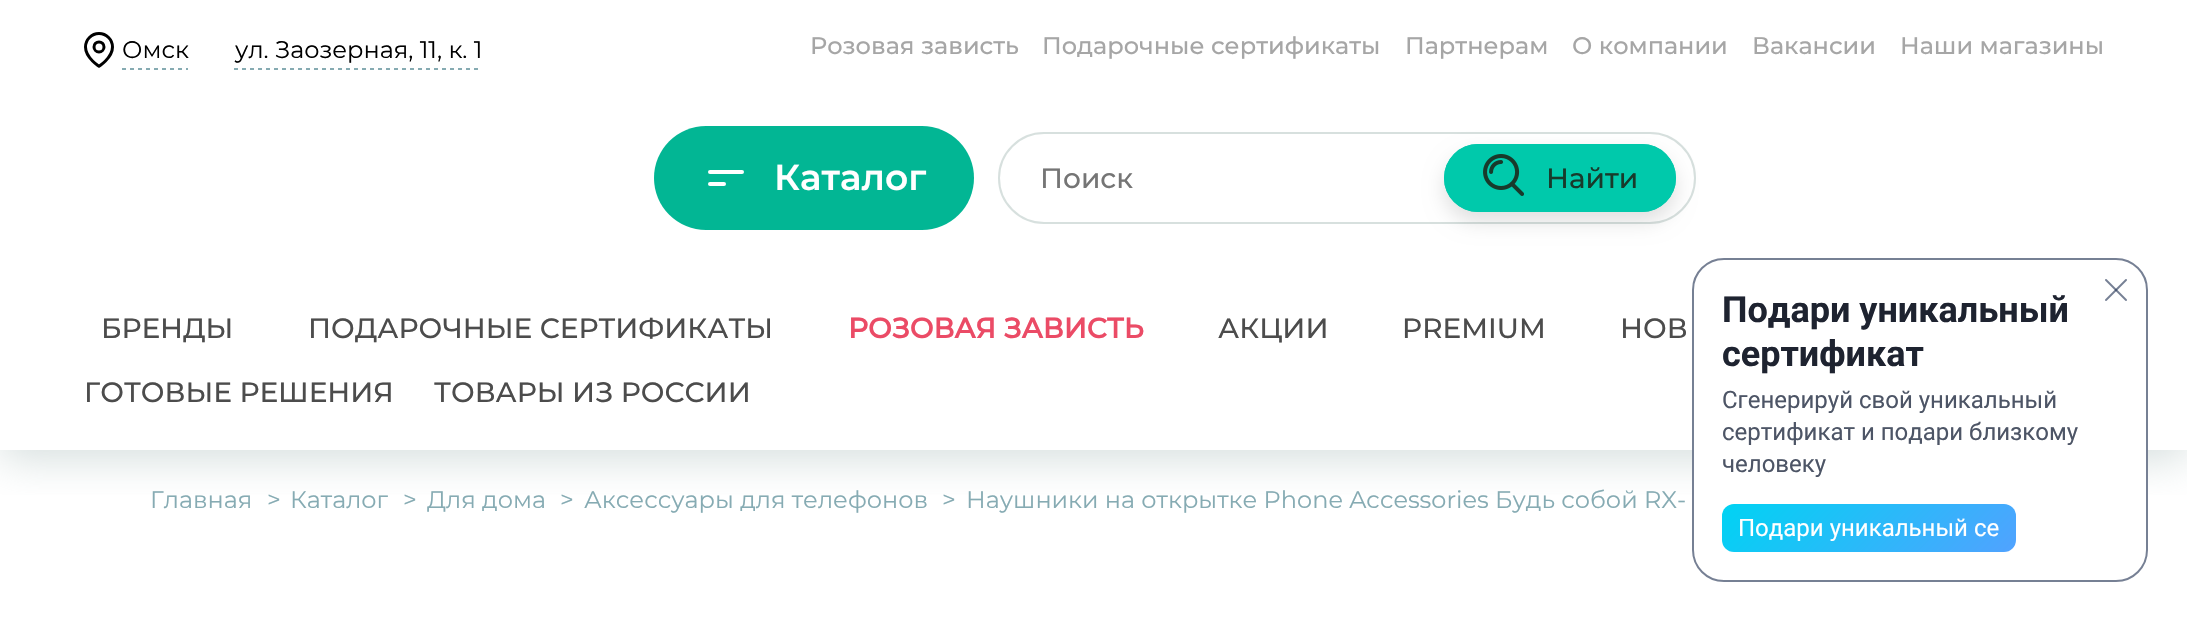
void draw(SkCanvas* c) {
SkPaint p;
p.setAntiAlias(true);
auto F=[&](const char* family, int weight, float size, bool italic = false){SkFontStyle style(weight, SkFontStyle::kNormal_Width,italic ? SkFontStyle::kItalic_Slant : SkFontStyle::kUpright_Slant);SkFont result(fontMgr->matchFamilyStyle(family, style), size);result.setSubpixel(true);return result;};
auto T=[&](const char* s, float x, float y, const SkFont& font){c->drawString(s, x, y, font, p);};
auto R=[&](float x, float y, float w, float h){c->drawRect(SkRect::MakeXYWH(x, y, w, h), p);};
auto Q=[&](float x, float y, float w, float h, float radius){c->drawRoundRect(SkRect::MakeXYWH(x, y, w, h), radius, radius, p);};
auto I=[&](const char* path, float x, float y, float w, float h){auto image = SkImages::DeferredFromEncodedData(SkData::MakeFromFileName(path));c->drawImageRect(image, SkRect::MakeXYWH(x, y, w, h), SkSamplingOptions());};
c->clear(0xffffffff);
c->save();
c->clipRect(SkRect::MakeXYWH(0,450,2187,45));
p.setColor(0x80aec0bd);
p.setMaskFilter(SkMaskFilter::MakeBlur(kNormal_SkBlurStyle, 20));
c->drawRect(SkRect::MakeXYWH(0,10,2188,450),p);
p.setMaskFilter(nullptr);
c->restore();
I("1.png",84,32,30,36);
auto f1 = F("Montserrat",400,24);
p.setColor(0xff000000);
T("Омск",122,58,f1);
p.setColor(0xff86abb2);
R(122,68,4,2);
R(130,68,4,2);
R(138,68,4,2);
R(146,68,4,2);
R(154,68,4,2);
R(162,68,4,2);
R(170,68,4,2);
R(178,68,4,2);
R(186,68,2,2);
p.setColor(0xff000000);
T("ул. Заозерная, 11, к. 1",235,58,f1);
I("2.png",234,68,244,2);
auto f2 = F("Montserrat",500,24);
p.setColor(0xffa6a6a6);
T("Розовая зависть",810,54,f2);
T("Подарочные сертификаты",1042,54,f2);
T("Партнерам",1405,54,f2);
T("О компании",1572,54,f2);
T("Вакансии",1752,54,f2);
T("Наши магазины",1900,54,f2);
p.setColor(0xff02b694);
Q(654,126,320,104,52);
p.setColor(0xffffffff);
Q(708,170,36,4,2);
Q(708,182,18,4,2);
auto f3 = F("Montserrat",600,36);
T("Каталог",774,190,f3);
p.setStroke(true);
p.setStrokeWidth(2);
p.setColor(0xffd7e0de);
c->drawRoundRect(SkRect::MakeXYWH(999,133,696,90),45,45,p);
auto f4 = F("Montserrat",500,28);
p.setStroke(false);
p.setColor(0xff757575);
T("Поиск",1040,188,f4);
p.setColor(0x1f000000);
p.setMaskFilter(SkMaskFilter::MakeBlur(kNormal_SkBlurStyle, 10));
c->drawRoundRect(SkRect::MakeXYWH(1444,154,232,68),34,34,p);
p.setMaskFilter(nullptr);
p.setColor(0xff00c9ab);
Q(1444,144,232,68,34);
I("3.png",1483,154,41,42);
p.setStroke(true);
c->drawRoundRect(SkRect::MakeXYWH(1445,145,230,66),33,33,p);
p.setStroke(false);
p.setColor(0xff183a2b);
T("Найти",1546,188,f4);
p.setColor(0xff4c4c4c);
T("БРЕНДЫ",101,338,f4);
T("ПОДАРОЧНЫЕ СЕРТИФИКАТЫ",308,338,f4);
auto f5 = F("Montserrat",700,28);
p.setColor(0xffeb4b66);
T("РОЗОВАЯ ЗАВИСТЬ",848,338,f5);
p.setColor(0xff4c4c4c);
T("АКЦИИ",1218,338,f4);
T("PREMIUM",1402,338,f4);
T("НОВ",1620,338,f4);
T("ГОТОВЫЕ РЕШЕНИЯ",84,402,f4);
T("ТОВАРЫ ИЗ РОССИИ",434,402,f4);
p.setColor(0xff86abb3);
T("Главная",150,508,f1);
T(">",267,508,f1);
T("Каталог",290,508,f1);
T(">",403,508,f1);
T("Для дома",427,508,f1);
T(">",560,508,f1);
T("Аксессуары для телефонов",584,508,f1);
T(">",942,508,f1);
T("Наушники на открытке Phone Accessories Будь собой RX-",966,508,f1);
p.setColor(0xffffffff);
c->drawRoundRect(SkRect::MakeXYWH(1693,259,454,322),31,31,p);
p.setStroke(true);
p.setColor(0xff768094);
c->drawRoundRect(SkRect::MakeXYWH(1693,259,454,322),31,31,p);
I("4.png",2105,279,22,22);
auto f6 = F("Roboto",700,36);
p.setStroke(false);
p.setColor(0xff1e2330);
T("Подари уникальный",1722,322,f6);
T("сертификат",1722,366,f6);
auto f7 = F("Roboto",400,24);
p.setColor(0xff4d5566);
T("Сгенерируй свой уникальный",1722,408,f7);
T("сертификат и подари близкому",1722,440,f7);
T("человеку",1722,472,f7);
{
const SkColor colors[] = {0xff00d3f3,0xff51a2ff};
const float stops[] = {0,1};
const SkPoint ends[] = {{1784,443}, {1955,614}};
p.setShader(SkGradientShader::MakeLinear(ends, colors, stops, 2, SkTileMode::kClamp));
p.setAlpha(255);
}
Q(1722,504,294,48,12);
p.setShader(nullptr);
p.setColor(0xffffffff);
T("Подари уникальный се",1738,536,f7);
}
